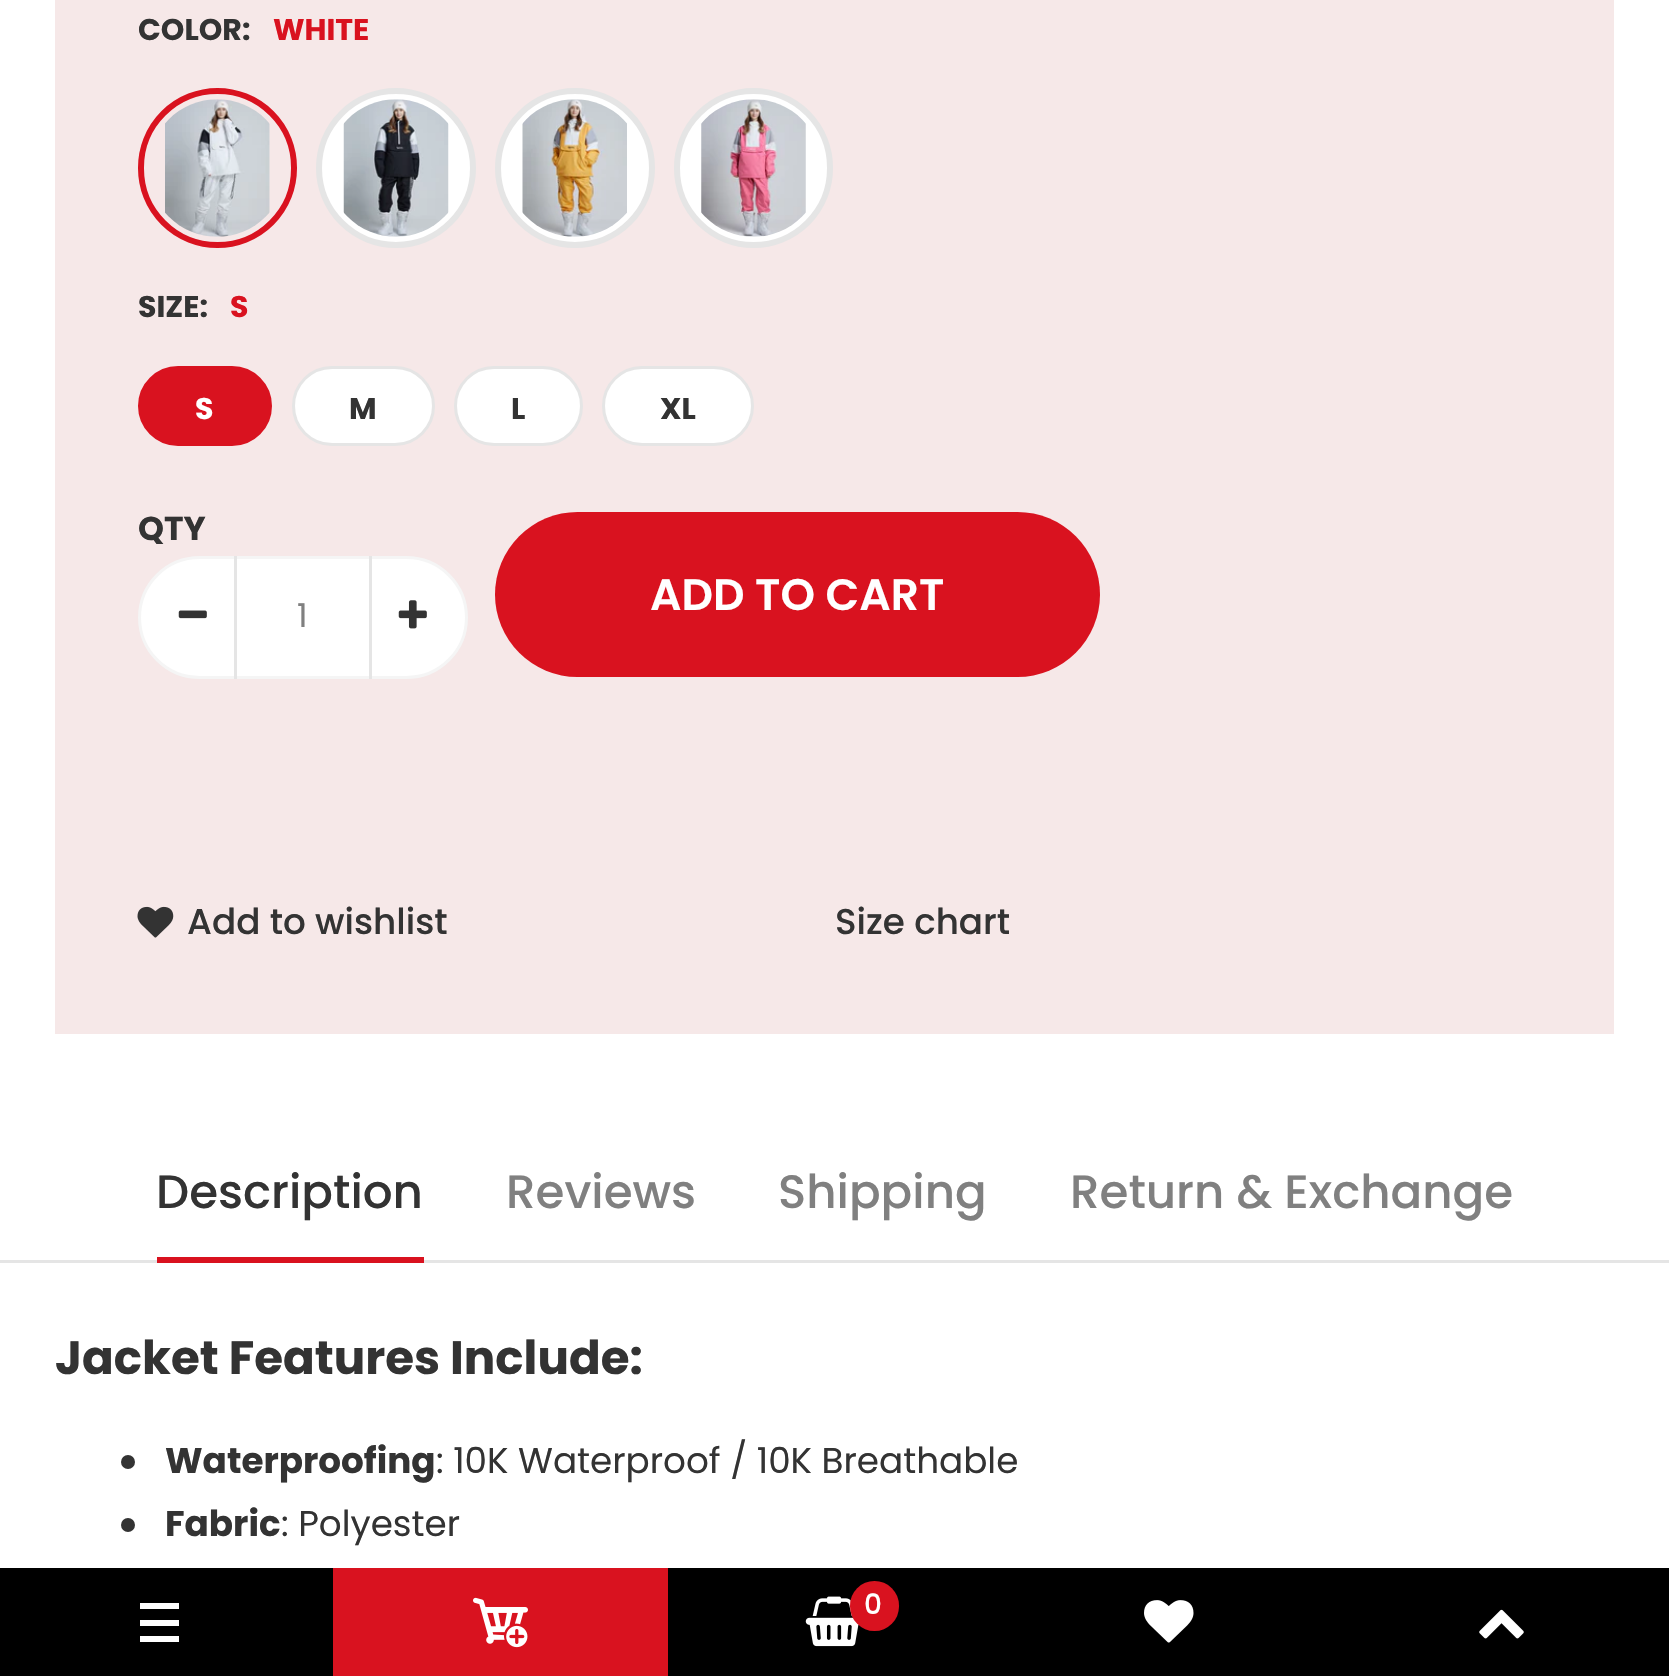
void draw(SkCanvas* c) {
SkPaint p;
p.setAntiAlias(true);
auto F=[&](const char* family, int weight, float size, bool italic = false){SkFontStyle style(weight, SkFontStyle::kNormal_Width,italic ? SkFontStyle::kItalic_Slant : SkFontStyle::kUpright_Slant);SkFont result(fontMgr->matchFamilyStyle(family, style), size);result.setSubpixel(true);return result;};
auto T=[&](const char* s, float x, float y, const SkFont& font){c->drawString(s, x, y, font, p);};
auto R=[&](float x, float y, float w, float h){c->drawRect(SkRect::MakeXYWH(x, y, w, h), p);};
auto Q=[&](float x, float y, float w, float h, float radius){c->drawRoundRect(SkRect::MakeXYWH(x, y, w, h), radius, radius, p);};
auto I=[&](const char* path, float x, float y, float w, float h){auto image = SkImages::DeferredFromEncodedData(SkData::MakeFromFileName(path));c->drawImageRect(image, SkRect::MakeXYWH(x, y, w, h), SkSamplingOptions());};
c->clear(0xffffffff);
p.setColor(0xfff6e8e8);
R(55,0,1559,1034);
auto f1 = F("Poppins",700,30);
p.setColor(0xff333333);
T("COLOR:",138,40,f1);
p.setColor(0xffd9121f);
T("WHITE",273,40,f1);
p.setStroke(true);
p.setStrokeWidth(6);
c->drawRoundRect(SkRect::MakeXYWH(141,91,153,154),76.5,76.5,p);
I("1.png",165,99,105,138);
p.setStroke(false);
p.setColor(0xffffffff);
c->drawCircle(396,168,77,p);
p.setStroke(true);
p.setColor(0xffe5e5e5);
c->drawCircle(396,168,77,p);
I("2.png",343,99,106,138);
p.setStroke(false);
p.setColor(0xffffffff);
c->drawCircle(575,168,77,p);
p.setStroke(true);
p.setColor(0xffe5e5e5);
c->drawCircle(575,168,77,p);
I("3.png",522,99,105,138);
p.setStroke(false);
p.setColor(0xffffffff);
c->drawRoundRect(SkRect::MakeXYWH(677,91,153,154),76.5,76.5,p);
p.setStroke(true);
p.setColor(0xffe5e5e5);
c->drawRoundRect(SkRect::MakeXYWH(677,91,153,154),76.5,76.5,p);
I("4.png",701,99,105,138);
p.setStroke(false);
p.setColor(0xff333333);
T("SIZE:",138,317,f1);
p.setColor(0xffd9121f);
T("S",230,317,f1);
c->drawRoundRect(SkRect::MakeXYWH(139.5,367.5,131,77),38.5,38.5,p);
p.setStroke(true);
p.setStrokeWidth(3);
c->drawRoundRect(SkRect::MakeXYWH(139.5,367.5,131,77),38.5,38.5,p);
p.setStroke(false);
p.setColor(0xffffffff);
T("S",195,419,f1);
c->drawRoundRect(SkRect::MakeXYWH(293.5,367.5,140,77),38.5,38.5,p);
p.setStroke(true);
p.setColor(0xffe5e5e5);
c->drawRoundRect(SkRect::MakeXYWH(293.5,367.5,140,77),38.5,38.5,p);
p.setStroke(false);
p.setColor(0xff333333);
T("M",349,419,f1);
p.setColor(0xffffffff);
c->drawRoundRect(SkRect::MakeXYWH(455.5,367.5,126,77),38.5,38.5,p);
p.setStroke(true);
p.setColor(0xffe5e5e5);
c->drawRoundRect(SkRect::MakeXYWH(455.5,367.5,126,77),38.5,38.5,p);
p.setStroke(false);
p.setColor(0xff333333);
T("L",511,419,f1);
p.setColor(0xffffffff);
c->drawRoundRect(SkRect::MakeXYWH(603.5,367.5,149,77),38.5,38.5,p);
p.setStroke(true);
p.setColor(0xffe5e5e5);
c->drawRoundRect(SkRect::MakeXYWH(603.5,367.5,149,77),38.5,38.5,p);
p.setStroke(false);
p.setColor(0xff333333);
T("XL",660,419,f1);
auto f2 = F("Poppins",700,33);
T("QTY",138,540,f2);
p.setColor(0xffffffff);
c->drawRoundRect(SkRect::MakeXYWH(139.5,557.5,327,120),60,60,p);
p.setStroke(true);
p.setColor(0xfff5f5f5);
c->drawRoundRect(SkRect::MakeXYWH(139.5,557.5,327,120),60,60,p);
p.setStroke(false);
p.setColor(0xffe5e5e5);
R(234,556,3,123);
I("5.png",178,610,29,9);
auto f3 = F("Poppins",400,33);
p.setColor(0xff808080);
T("1",297,627,f3);
p.setColor(0xffe5e5e5);
R(369,556,3,123);
I("6.png",398,600,29,29);
p.setColor(0xffd9121f);
Q(495,512,605,165,82.5);
auto f4 = F("Poppins",600,44);
p.setColor(0xffffffff);
T("ADD TO CART",650,610,f4);
I("7.png",137,906,37,32);
auto f5 = F("Poppins",500,35.75);
p.setColor(0xff333333);
T("Add to wishlist",187,934,f5);
T("Size chart",835,934,f5);
auto f6 = F("Poppins",500,46.75);
T("Description",156,1208,f6);
p.setColor(0xffe5e5e5);
R(0,1260,1669,3);
p.setColor(0xffd9121f);
R(157,1257,267,6);
p.setColor(0xff808080);
T("Reviews",506,1208,f6);
T("Shipping",778,1208,f6);
T("Return & Exchange",1070,1208,f6);
auto f7 = F("Poppins",700,46.75);
p.setColor(0xff333333);
T("Jacket Features Include:",55,1374,f7);
c->drawCircle(128,1462,7,p);
auto f8 = F("Poppins",700,35.75);
T("Waterproofing",165,1473,f8);
auto f9 = F("Poppins",400,35.75);
T(": 10K Waterproof / 10K Breathable",436,1473,f9);
c->drawCircle(128,1525,7,p);
T("Fabric",165,1536,f8);
T(": Polyester",281,1536,f9);
p.setColor(0xff000000);
R(0,1568,333,108);
p.setColor(0xffffffff);
R(140,1620,39,6);
R(140,1603,39,6);
R(140,1636,39,6);
p.setColor(0xffd9121f);
R(333,1568,335,108);
I("8.png",473,1597,55,51);
p.setColor(0xff000000);
R(668,1568,669,108);
I("9.png",805,1596,54,51);
p.setColor(0xffd9121f);
Q(850,1581,49,50,24.5);
auto f10 = F("Poppins",500,28);
p.setColor(0xffffffff);
T("0",864,1614,f10);
I("10.png",1144,1600,50,43);
p.setColor(0xff000000);
R(1337,1568,332,108);
I("11.png",1479,1609,45,30);
}
